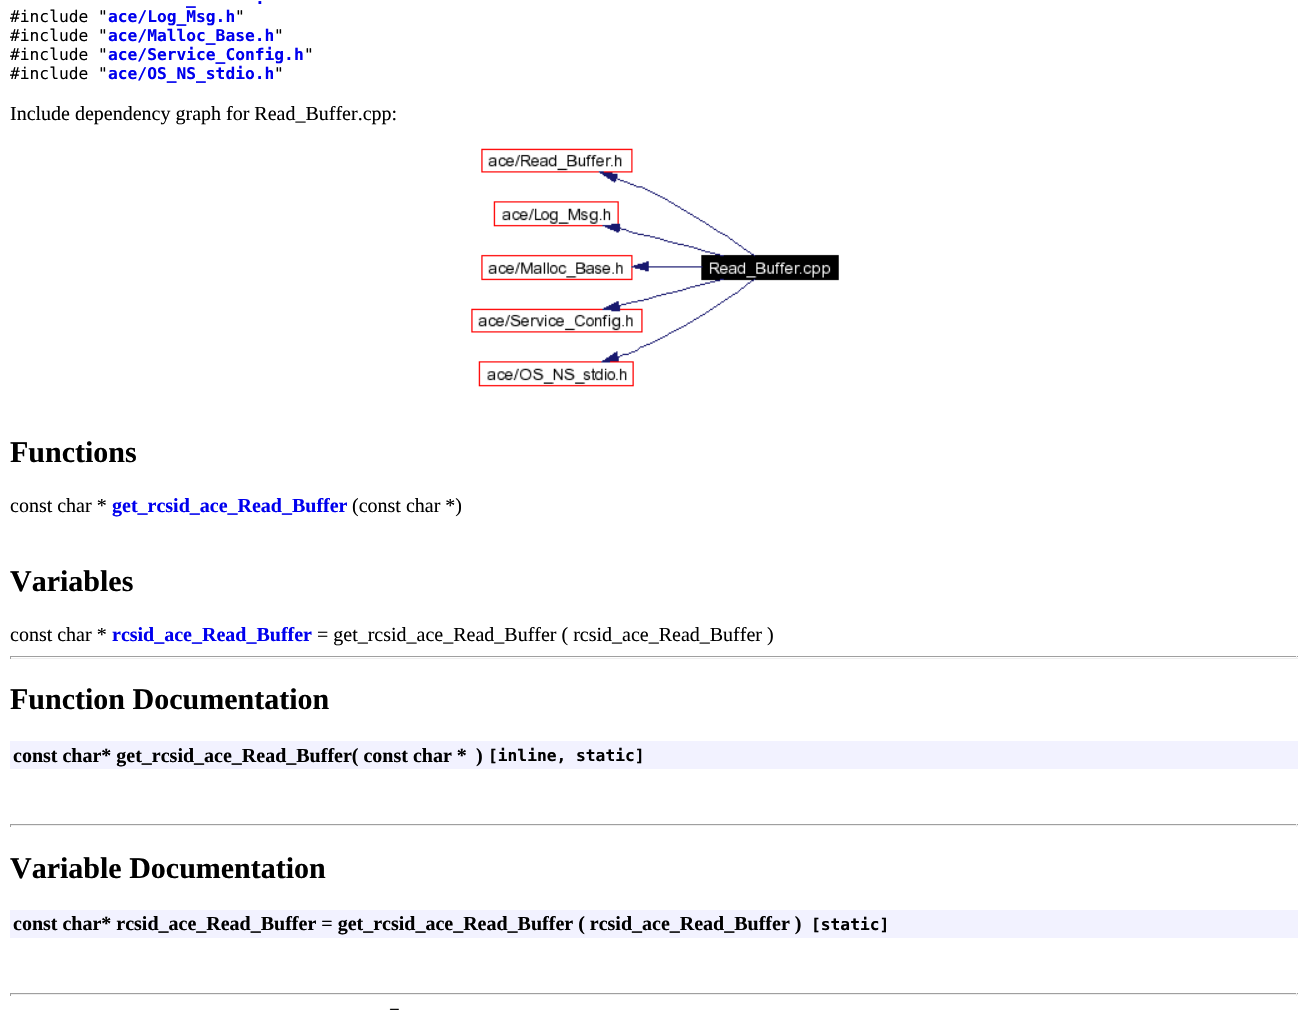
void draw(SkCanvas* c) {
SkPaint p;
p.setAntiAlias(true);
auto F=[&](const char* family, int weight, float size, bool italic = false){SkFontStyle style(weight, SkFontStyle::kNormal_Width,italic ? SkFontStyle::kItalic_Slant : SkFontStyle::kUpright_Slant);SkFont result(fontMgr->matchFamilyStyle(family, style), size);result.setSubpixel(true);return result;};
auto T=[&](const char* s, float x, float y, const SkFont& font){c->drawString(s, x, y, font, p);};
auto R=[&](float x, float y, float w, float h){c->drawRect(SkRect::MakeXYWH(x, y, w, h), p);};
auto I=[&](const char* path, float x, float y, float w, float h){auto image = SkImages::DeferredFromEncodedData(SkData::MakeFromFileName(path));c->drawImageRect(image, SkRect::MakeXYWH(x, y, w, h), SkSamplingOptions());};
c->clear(0xffffffff);
auto f1 = F("DejaVu Sans Mono",700,16.25);
p.setColor(0xff0000ee);
T(".",255,4,f1);
T("_",186,4,f1);
auto f2 = F("DejaVu Sans Mono",400,16.25);
p.setColor(0xff000000);
T("#include \"",10,22,f2);
p.setColor(0xff0000ee);
T("ace/Log_Msg.h",108,22,f1);
p.setColor(0xff000000);
T("\"",235,22,f2);
T("#include \"",10,41,f2);
p.setColor(0xff0000ee);
T("ace/Malloc_Base.h",108,41,f1);
p.setColor(0xff000000);
T("\"",274,41,f2);
T("#include \"",10,60,f2);
p.setColor(0xff0000ee);
T("ace/Service_Config.h",108,60,f1);
p.setColor(0xff000000);
T("\"",304,60,f2);
T("#include \"",10,79,f2);
p.setColor(0xff0000ee);
T("ace/OS_NS_stdio.h",108,79,f1);
p.setColor(0xff000000);
T("\"",274,79,f2);
auto f3 = F("Liberation Serif",400,20);
T("Include dependency graph for Read_Buffer.cpp:",10,120,f3);
I("1.png",471,148,368,239);
auto f4 = F("Liberation Serif",700,30);
T("Functions",10,462,f4);
T("const char *",10,512,f3);
auto f5 = F("Liberation Serif",700,20);
p.setColor(0xff0000ee);
T("get_rcsid_ace_Read_Buffer",112,512,f5);
p.setColor(0xff000000);
T("(const char *)",352,512,f3);
T("Variables",10,591,f4);
T("const char *",10,641,f3);
p.setColor(0xff0000ee);
T("rcsid_ace_Read_Buffer",112,641,f5);
p.setColor(0xff000000);
T("= get_rcsid_ace_Read_Buffer ( rcsid_ace_Read_Buffer )",317,641,f3);
p.setColor(0xff9f9f9f);
R(10,656,1288,1);
p.setColor(0xffeeeeee);
R(1296,656,1,3);
R(10,658,1288,1);
p.setColor(0xff9f9f9f);
R(10,656,1,3);
p.setColor(0xff000000);
T("Function Documentation",10,709,f4);
p.setColor(0xfff2f2ff);
R(10,741,1288,28);
p.setColor(0xff000000);
T("const char* get_rcsid_ace_Read_Buffer( const char *",13,762,f5);
T(")",476,762,f5);
T("[inline, static]",488,761,f1);
p.setColor(0xff9f9f9f);
R(10,824,1288,1);
p.setColor(0xffeeeeee);
R(1296,824,1,3);
R(10,825,1288,1);
p.setColor(0xff9f9f9f);
R(10,824,1,3);
p.setColor(0xff000000);
T("Variable Documentation",10,878,f4);
p.setColor(0xfff2f2ff);
R(10,910,1288,28);
p.setColor(0xff000000);
T("const char* rcsid_ace_Read_Buffer = get_rcsid_ace_Read_Buffer ( rcsid_ace_Read_Buffer )",13,930,f5);
T("[static]",811,930,f1);
p.setColor(0xff9f9f9f);
R(10,993,1288,1);
p.setColor(0xffeeeeee);
R(1296,993,1,3);
R(10,994,1288,1);
p.setColor(0xff9f9f9f);
R(10,993,1,3);
I("2.png",389,1008,10,2);
}
